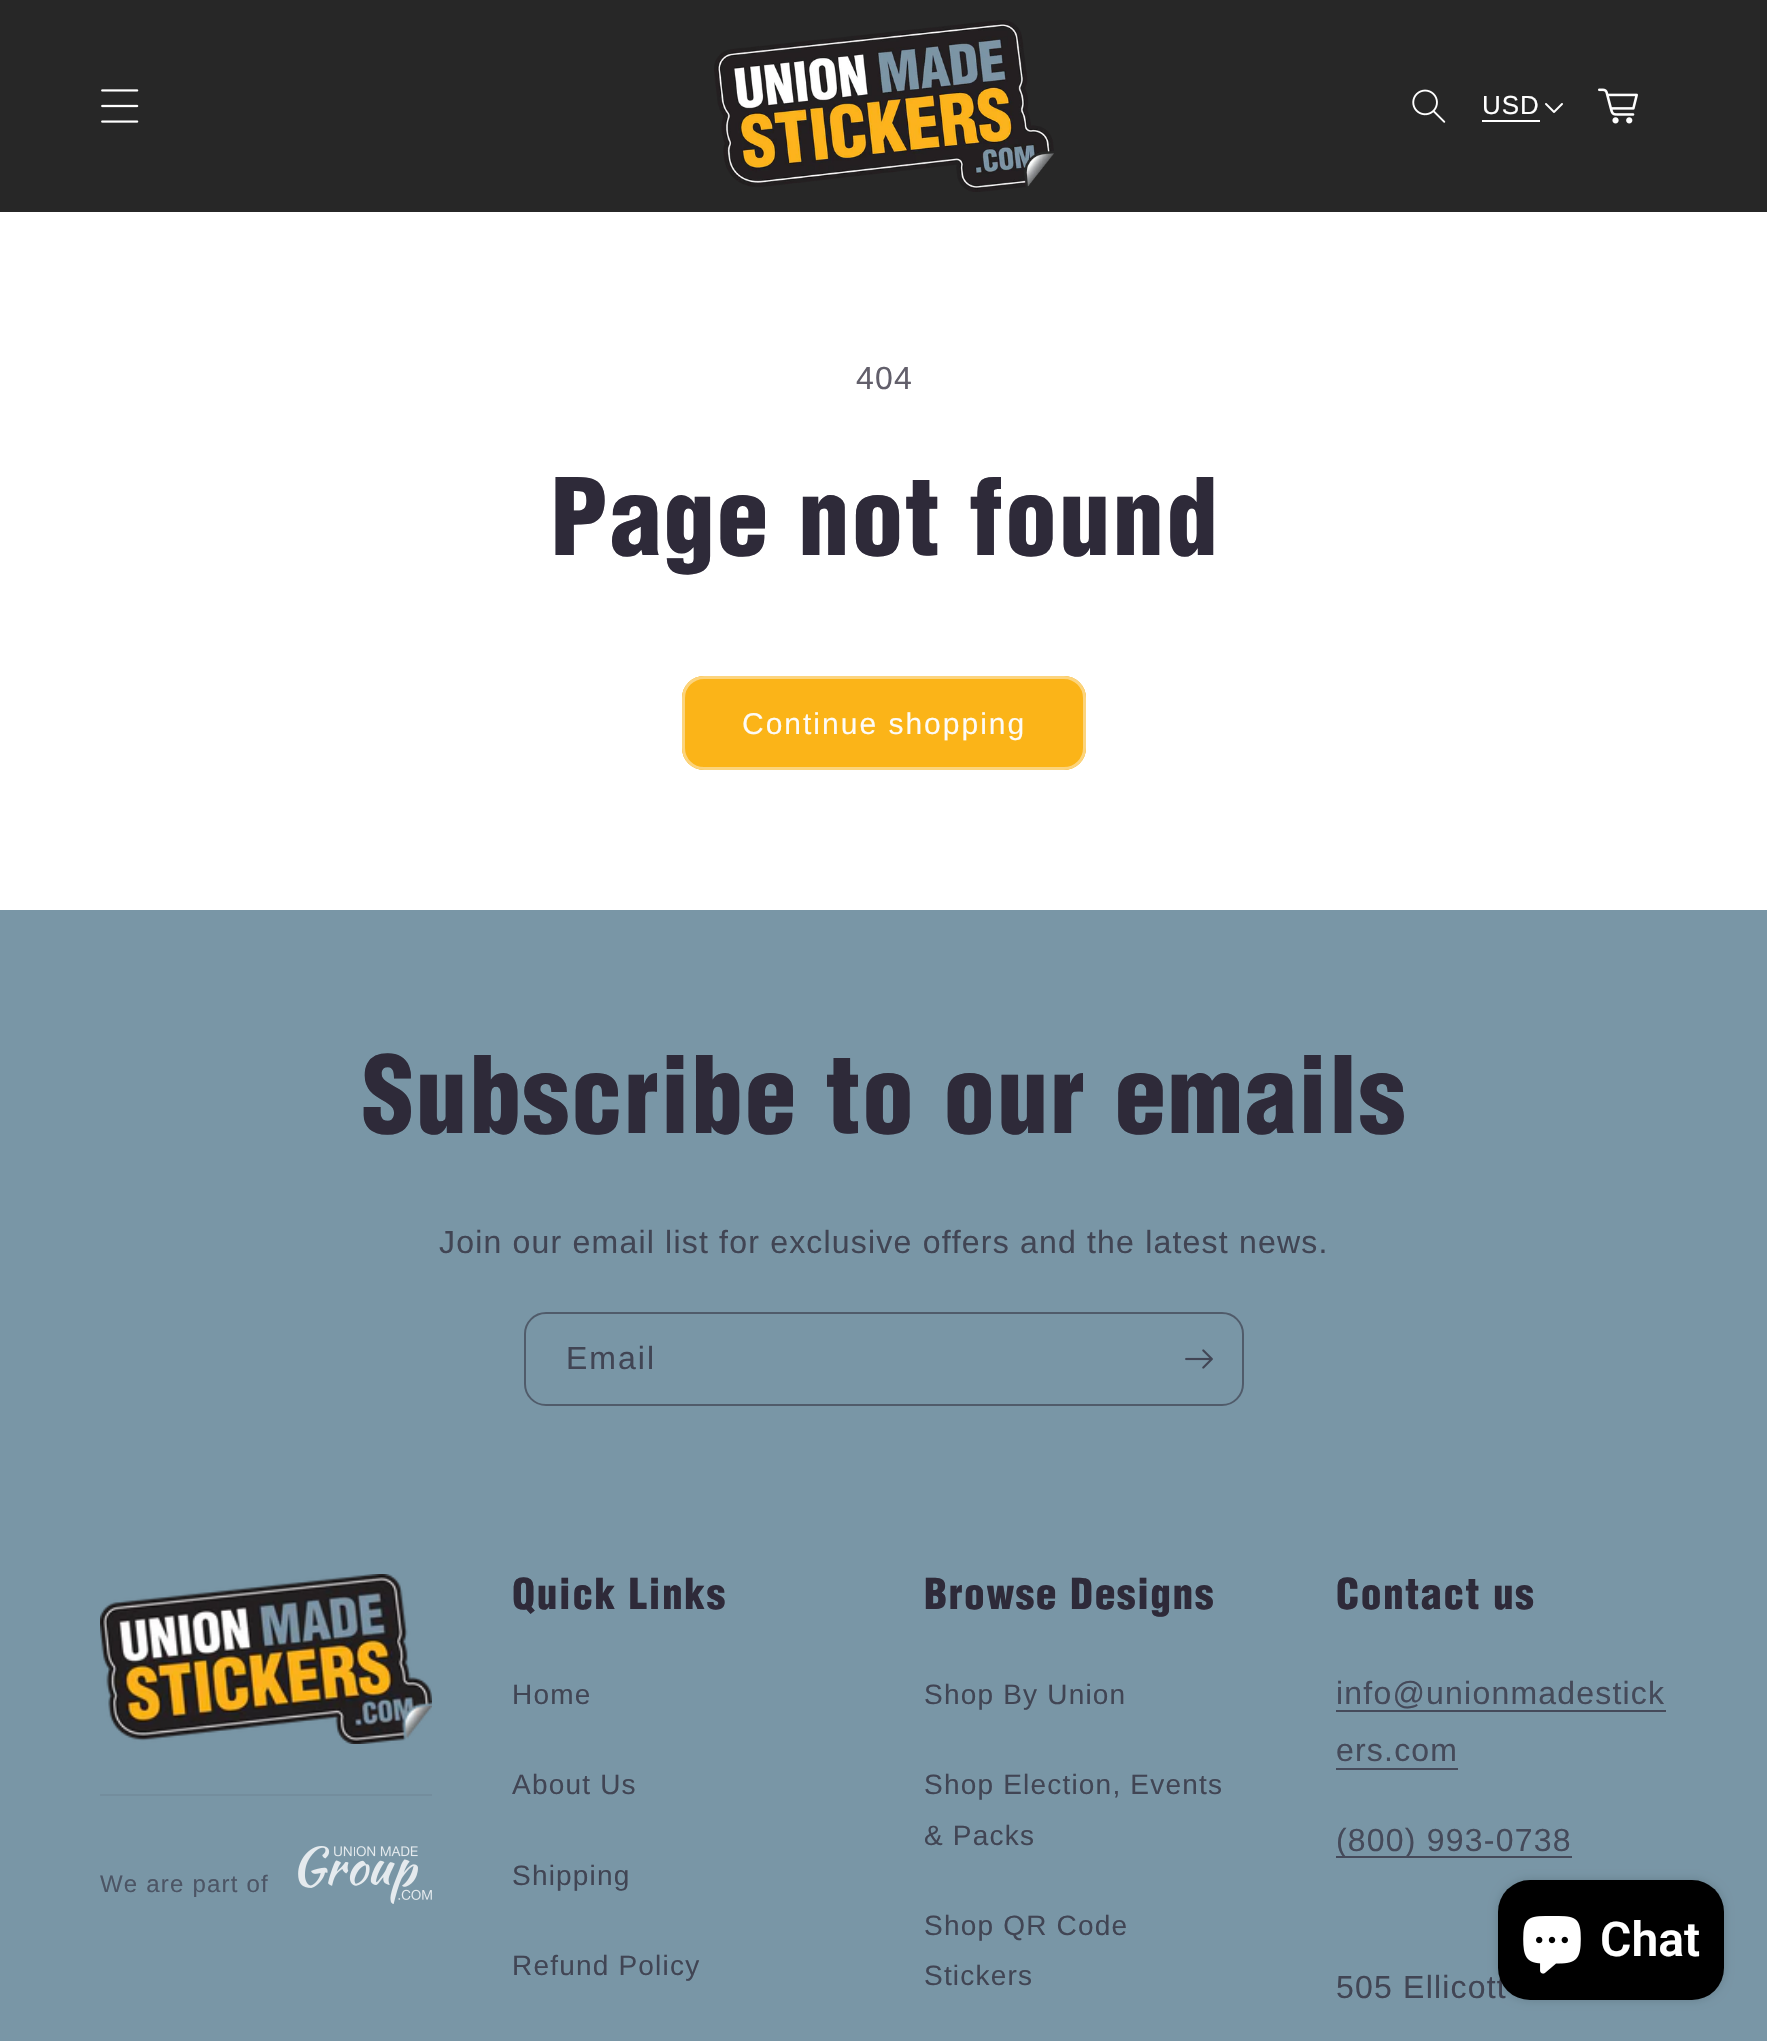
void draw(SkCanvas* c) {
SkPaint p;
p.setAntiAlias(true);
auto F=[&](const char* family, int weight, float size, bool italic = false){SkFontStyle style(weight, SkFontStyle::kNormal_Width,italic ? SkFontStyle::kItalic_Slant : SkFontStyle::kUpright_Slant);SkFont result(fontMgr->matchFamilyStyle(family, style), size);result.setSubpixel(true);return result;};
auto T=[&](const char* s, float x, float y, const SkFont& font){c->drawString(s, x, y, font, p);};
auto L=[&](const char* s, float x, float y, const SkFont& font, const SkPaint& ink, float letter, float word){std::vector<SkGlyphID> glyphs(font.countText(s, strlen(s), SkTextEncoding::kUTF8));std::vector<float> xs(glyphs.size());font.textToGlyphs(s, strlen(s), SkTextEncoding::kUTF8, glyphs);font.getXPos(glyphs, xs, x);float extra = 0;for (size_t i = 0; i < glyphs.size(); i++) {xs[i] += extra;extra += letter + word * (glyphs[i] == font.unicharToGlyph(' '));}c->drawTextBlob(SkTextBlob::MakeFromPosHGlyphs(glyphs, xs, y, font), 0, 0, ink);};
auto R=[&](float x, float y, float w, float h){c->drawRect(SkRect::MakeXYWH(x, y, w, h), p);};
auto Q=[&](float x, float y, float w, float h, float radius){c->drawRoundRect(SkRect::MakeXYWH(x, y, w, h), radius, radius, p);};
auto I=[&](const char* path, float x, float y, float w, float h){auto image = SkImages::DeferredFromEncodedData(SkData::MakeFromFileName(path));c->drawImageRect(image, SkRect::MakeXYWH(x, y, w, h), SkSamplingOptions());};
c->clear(0xffffffff);
p.setColor(0xff272727);
R(0,0,1767,212);
I("1.png",101,89,38,34);
I("2.png",714,20,340,172);
I("3.png",1412,89,34,34);
auto f1 = F("Liberation Sans",400,26);
p.setColor(0xffffffff);
L("USD",1482,114,f1,p,1,0);
R(1482,120,58,2);
I("4.png",1545,103,18,10);
I("5.png",1598,88,40,36);
auto f2 = F("Liberation Sans",400,32);
p.setColor(0xff625f6b);
L("404",856,389,f2,p,1.2,0);
auto f3 = F("Helvetica",900,104);
p.setColor(0xff2e2a39);
L("Page not found",550,555,f3,p,1.6,0);
p.setColor(0xfffbb418);
Q(682,676,404,94,22);
p.setStroke(true);
p.setStrokeWidth(2);
c->drawRoundRect(SkRect::MakeXYWH(683,677,402,92),21,21,p);
p.setStrokeWidth(3);
p.setColor(0x73fdfbf7);
c->drawRoundRect(SkRect::MakeXYWH(683.5,677.5,401,91),20.5,20.5,p);
auto f4 = F("Liberation Sans",400,30);
p.setStroke(false);
p.setColor(0xfffdfbf7);
L("Continue shopping",742,734,f4,p,2,0);
p.setColor(0xff7996a6);
R(0,910,1767,1131);
p.setColor(0xff2e2a39);
L("Subscribe to our emails",362,1133,f3,p,1.6,0);
p.setColor(0xff414554);
L("Join our email list for exclusive offers and the latest news.",439,1253,f2,p,1.2,0);
p.setStroke(true);
p.setStrokeWidth(2);
p.setColor(0xff505b6a);
c->drawRoundRect(SkRect::MakeXYWH(525,1313,718,92),21,21,p);
p.setStroke(false);
p.setColor(0xff414554);
L("Email",566,1369,f2,p,2,0);
I("6.png",1185,1349,28,20);
I("7.png",100,1574,332,170);
p.setColor(0xff738d9d);
R(100,1794,332,2);
auto f5 = F("Liberation Sans",400,24);
p.setColor(0xff4c5565);
L("We are part of",100,1892,f5,p,1.2,0);
I("8.png",298,1846,134,58);
auto f6 = F("Helvetica",900,41.5);
p.setColor(0xff2e2a39);
L("Quick Links",512,1609,f6,p,1.6,0);
auto f7 = F("Liberation Sans",400,28);
p.setColor(0xff414554);
L("Home",512,1704,f7,p,1.2,0);
L("About Us",512,1794,f7,p,1.2,0);
L("Shipping",512,1885,f7,p,1.2,0);
L("Refund Policy",512,1975,f7,p,1.2,0);
p.setColor(0xff2e2a39);
L("Browse Designs",924,1609,f6,p,1.6,0);
p.setColor(0xff414554);
L("Shop By Union",924,1704,f7,p,1.2,0);
L("Shop Election, Events",924,1794,f7,p,1.2,0);
L("& Packs",924,1845,f7,p,1.2,0);
L("Shop QR Code",924,1935,f7,p,1.2,0);
L("Stickers",924,1985,f7,p,1.2,0);
p.setColor(0xff2e2a39);
L("Contact us",1336,1609,f6,p,1.6,0);
p.setColor(0xff454a5a);
L("info@unionmadestick",1336,1704,f2,p,1.2,0);
R(1336,1710,330,2);
L("ers.com",1336,1761,f2,p,1.2,0);
R(1336,1768,122,2);
R(1336,1856,236,2);
L("(800) 993-0738",1336,1851,f2,p,1.2,0);
p.setColor(0xff414554);
L("505 Ellicott",1336,1998,f2,p,1.2,0);
p.setColor(0x26000000);
p.setMaskFilter(SkMaskFilter::MakeBlur(kNormal_SkBlurStyle, 5));
c->drawRoundRect(SkRect::MakeXYWH(1498,1880,226,120),32,32,p);
p.setMaskFilter(nullptr);
p.setColor(0xff000000);
Q(1498,1880,226,120,32);
I("9.png",1523,1916,58,58);
auto f8 = F("Roboto",600,48);
p.setColor(0xffffffff);
T("Chat",1600,1956,f8);
}
